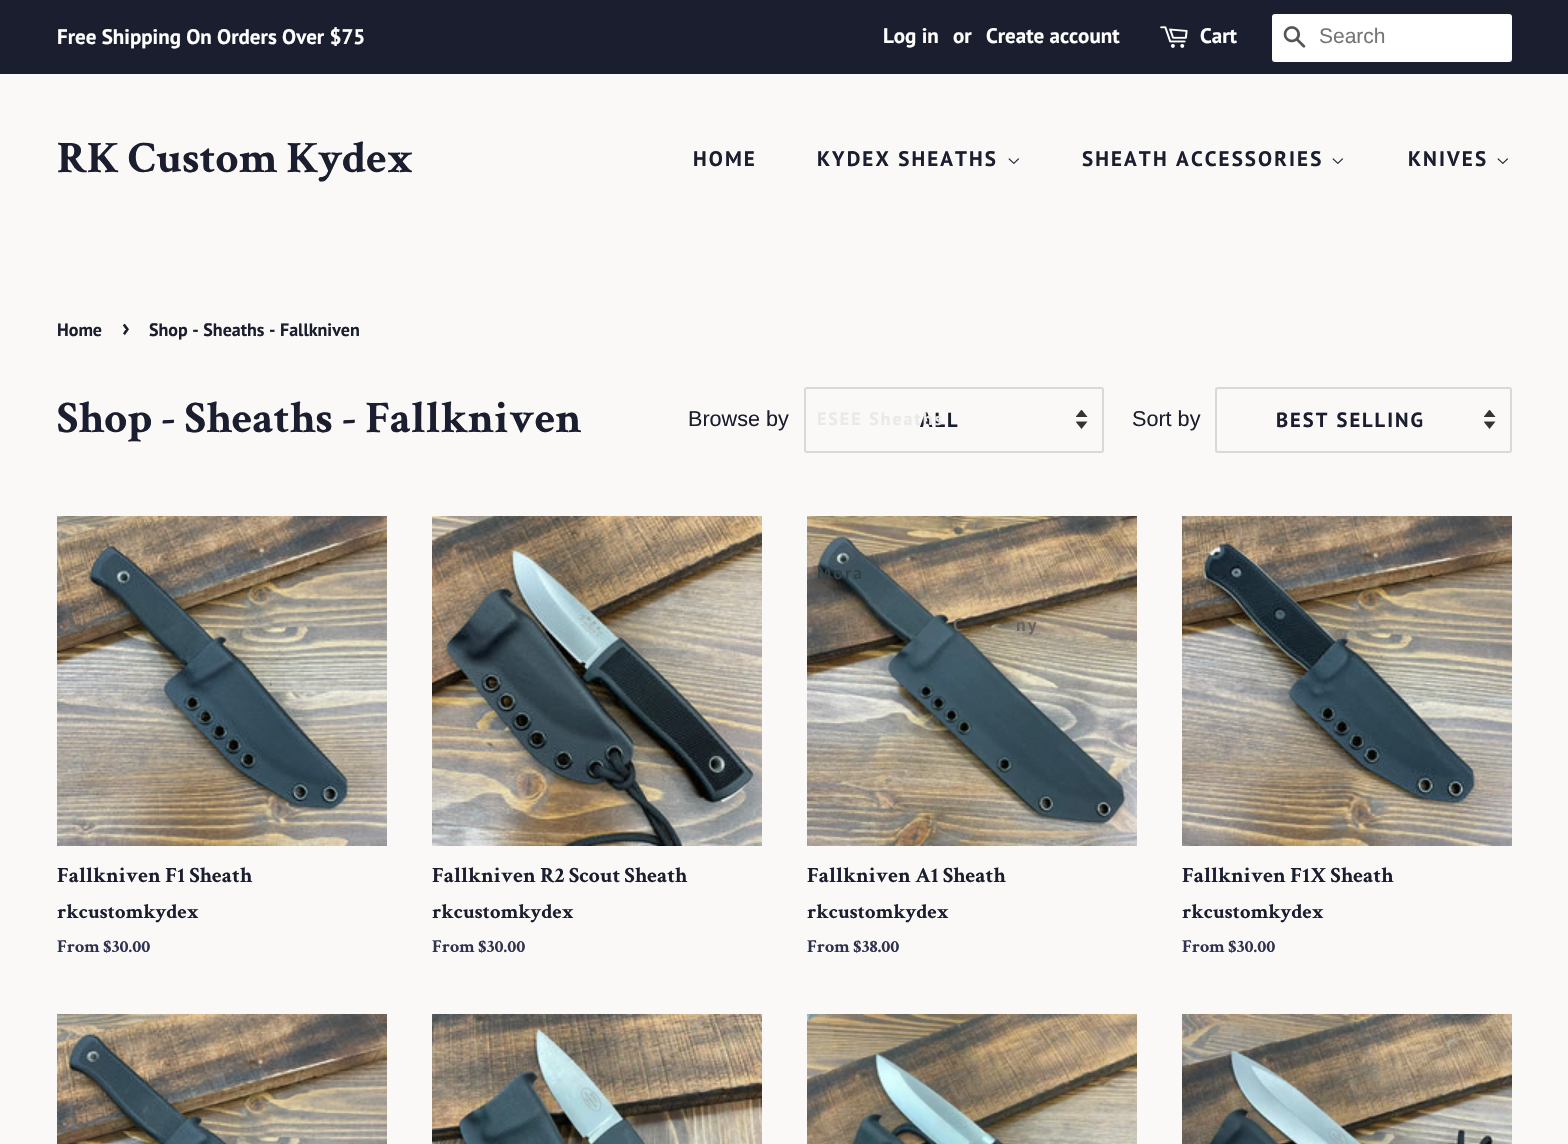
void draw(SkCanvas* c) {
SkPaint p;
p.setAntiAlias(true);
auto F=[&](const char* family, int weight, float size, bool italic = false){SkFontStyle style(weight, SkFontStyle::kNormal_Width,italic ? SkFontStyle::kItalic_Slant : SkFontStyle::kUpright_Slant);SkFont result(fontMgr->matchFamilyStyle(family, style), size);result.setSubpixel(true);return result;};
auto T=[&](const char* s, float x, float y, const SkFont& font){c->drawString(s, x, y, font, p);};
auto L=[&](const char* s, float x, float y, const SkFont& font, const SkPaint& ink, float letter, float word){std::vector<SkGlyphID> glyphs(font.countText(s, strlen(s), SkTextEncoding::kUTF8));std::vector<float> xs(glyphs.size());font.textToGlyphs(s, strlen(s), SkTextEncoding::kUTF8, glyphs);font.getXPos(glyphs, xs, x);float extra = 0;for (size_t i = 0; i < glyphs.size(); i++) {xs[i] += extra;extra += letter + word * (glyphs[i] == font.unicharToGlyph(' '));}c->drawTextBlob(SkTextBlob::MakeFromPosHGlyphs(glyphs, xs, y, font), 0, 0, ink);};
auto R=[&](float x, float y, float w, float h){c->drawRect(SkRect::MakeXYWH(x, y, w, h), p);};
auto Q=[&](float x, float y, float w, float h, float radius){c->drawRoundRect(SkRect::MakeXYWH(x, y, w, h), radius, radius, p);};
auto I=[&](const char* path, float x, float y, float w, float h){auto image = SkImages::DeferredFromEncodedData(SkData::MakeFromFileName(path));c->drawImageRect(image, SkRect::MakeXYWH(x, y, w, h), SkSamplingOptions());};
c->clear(0xfffaf9f7);
p.setColor(0xff1b1e2f);
R(0,0,1568,74);
auto f1 = F("PT Sans",700,21);
p.setColor(0xffffffff);
T("Free Shipping On Orders Over $75",57,44,f1);
T("Log in",883,43,f1);
T("or",953,43,f1);
T("Create account",986,43,f1);
I("1.png",1160,26,28,22);
T("Cart",1200,43,f1);
Q(1272,14,240,48,3);
I("2.png",1283,26,23,22);
auto f2 = F("Liberation Sans",400,21);
p.setColor(0xff757575);
T("Search",1319,43,f2);
auto f3 = F("Crimson Text",700,45);
p.setColor(0xff1b1e2f);
T("RK Custom Kydex",57,172,f3);
L("HOME",693,166,f1,p,2.1,0);
L("KYDEX SHEATHS",817,166,f1,p,2.1,0);
I("3.png",1008,158,11,6);
I("4.png",1076,410,12,19);
p.setStroke(true);
p.setStrokeWidth(2);
p.setColor(0xffd9d8d9);
c->drawRoundRect(SkRect::MakeXYWH(805,388,298,64),2,2,p);
auto f4 = F("PT Sans",700,20.5);
p.setStroke(false);
p.setColor(0xff1b1e2f);
L("ALL",920,427,f4,p,2,0);
auto f5 = F("PT Sans",700,17.75);
p.setColor(0xffe9e9e8);
L("ESEE Sheaths",817,425,f5,p,2.1,0);
I("7.png",807,516,330,330);
p.setColor(0xff334045);
L("Mora",817,579,f5,p,2.1,0);
p.setColor(0xff69655c);
L("C",953,631,f5,p,2.1,0);
L("ny",1016,631,f5,p,2.1,0);
p.setColor(0xff1b1e2f);
L("SHEATH ACCESSORIES",1082,166,f1,p,2.1,0);
I("3.png",1332,158,11,6);
L("KNIVES",1408,166,f1,p,2.1,0);
I("3.png",1497,158,11,6);
auto f6 = F("PT Sans",700,18);
T("Home",57,336,f6);
auto f7 = F("PT Sans",700,25);
T("›",122,336,f7);
T("Shop - Sheaths - Fallkniven",149,336,f6);
T("Shop - Sheaths - Fallkniven",57,432,f3);
auto f8 = F("Liberation Sans",400,21.6);
T("Browse by",688,426,f8);
T("Sort by",1132,426,f8);
I("4.png",1484,410,12,19);
p.setStroke(true);
p.setColor(0xffd9d8d9);
c->drawRoundRect(SkRect::MakeXYWH(1216,388,295,64),2,2,p);
p.setStroke(false);
p.setColor(0xff1b1e2f);
L("BEST SELLING",1276,427,f4,p,2,0);
I("5.png",57,516,330,330);
auto f9 = F("Crimson Text",700,21.6);
T("Fallkniven F1 Sheath",57,882,f9);
auto f10 = F("Crimson Text",700,20.5);
T("rkcustomkydex",57,918,f10);
auto f11 = F("Crimson Text",700,18);
p.setColor(0xff2e334f);
T("From $30.00",57,952,f11);
I("6.png",432,516,330,330);
p.setColor(0xff1b1e2f);
T("Fallkniven R2 Scout Sheath",432,882,f9);
T("rkcustomkydex",432,918,f10);
p.setColor(0xff2e334f);
T("From $30.00",432,952,f11);
p.setColor(0xff1b1e2f);
T("Fallkniven A1 Sheath",807,882,f9);
T("rkcustomkydex",807,918,f10);
p.setColor(0xff2e334f);
T("From $38.00",807,952,f11);
I("8.png",1182,516,330,330);
p.setColor(0xff1b1e2f);
T("Fallkniven F1X Sheath",1182,882,f9);
T("rkcustomkydex",1182,918,f10);
p.setColor(0xff2e334f);
T("From $30.00",1182,952,f11);
I("9.png",57,1014,330,130);
I("10.png",432,1014,330,130);
I("11.png",807,1014,330,130);
I("12.png",1182,1014,330,130);
}
